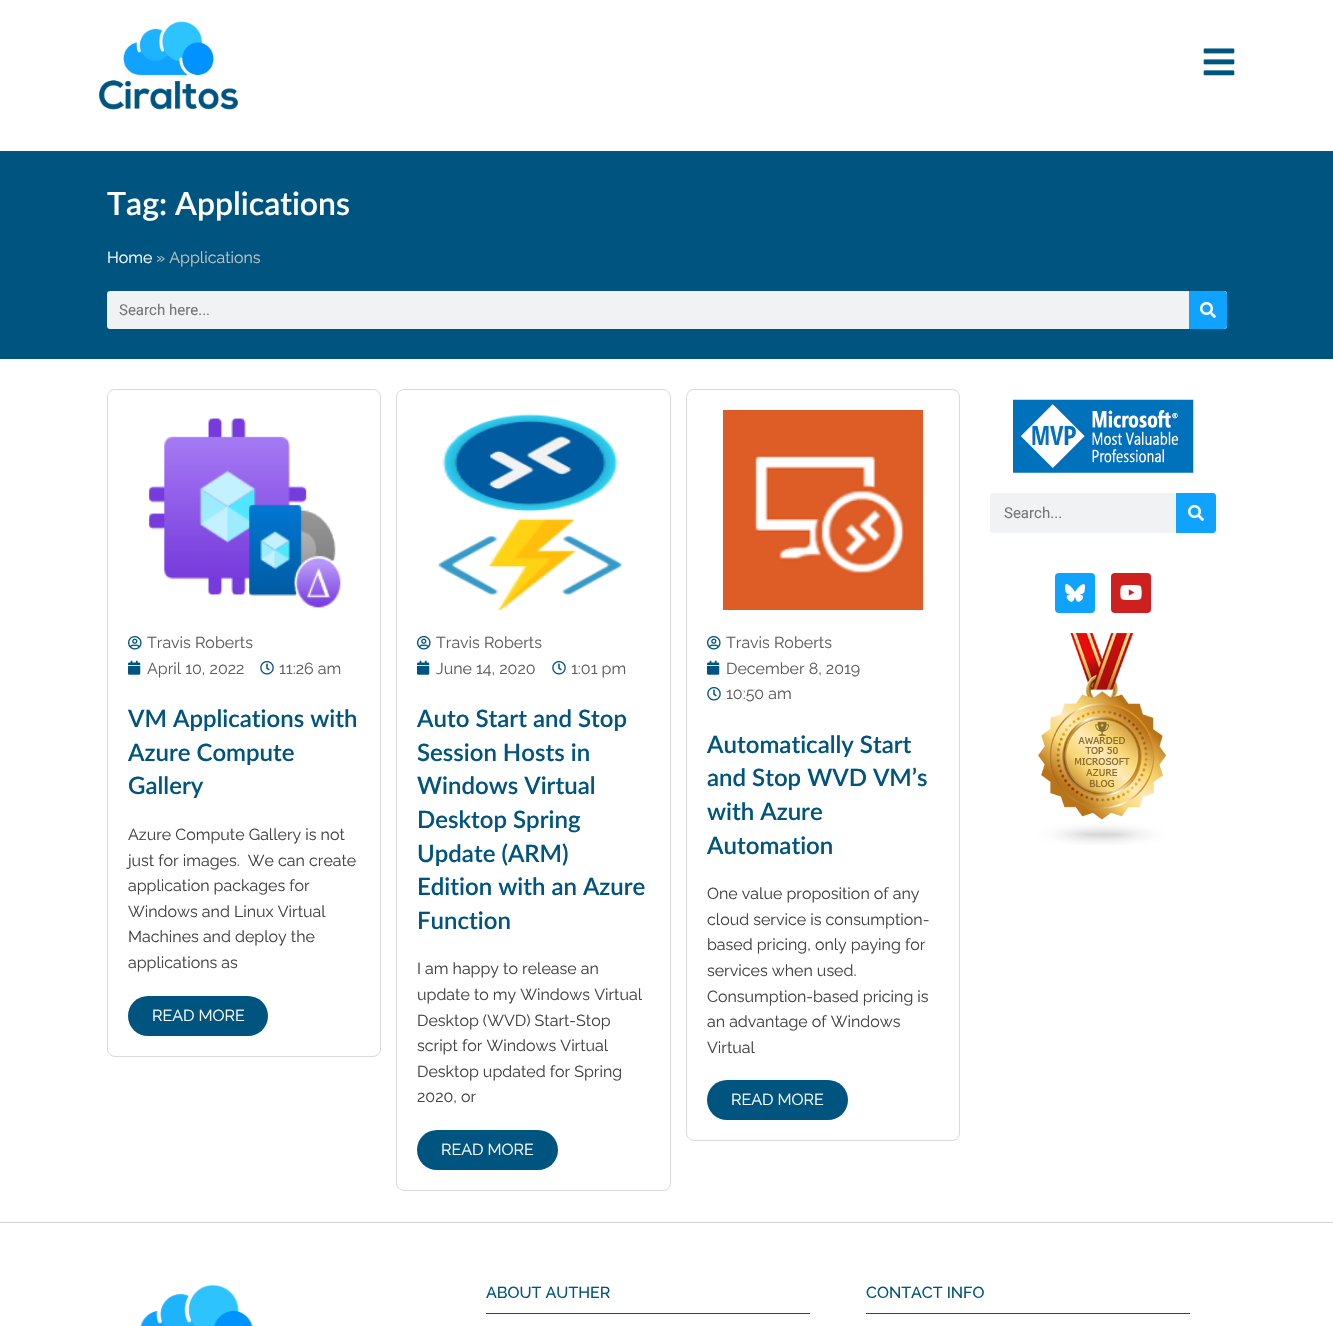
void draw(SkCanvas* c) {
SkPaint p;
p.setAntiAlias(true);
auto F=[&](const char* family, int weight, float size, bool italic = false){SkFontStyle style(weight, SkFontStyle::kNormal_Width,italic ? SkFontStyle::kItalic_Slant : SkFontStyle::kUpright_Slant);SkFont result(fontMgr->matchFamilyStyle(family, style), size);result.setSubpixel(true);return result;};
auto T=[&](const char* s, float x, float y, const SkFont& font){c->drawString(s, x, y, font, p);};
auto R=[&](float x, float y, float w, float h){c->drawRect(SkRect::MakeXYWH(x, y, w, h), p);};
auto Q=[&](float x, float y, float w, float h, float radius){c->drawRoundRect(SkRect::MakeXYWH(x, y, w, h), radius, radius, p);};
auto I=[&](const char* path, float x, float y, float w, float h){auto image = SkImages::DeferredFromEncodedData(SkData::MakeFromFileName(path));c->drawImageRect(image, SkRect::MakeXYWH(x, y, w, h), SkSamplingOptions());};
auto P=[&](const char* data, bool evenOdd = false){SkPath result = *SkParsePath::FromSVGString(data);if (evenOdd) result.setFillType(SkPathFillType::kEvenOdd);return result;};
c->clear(0xffffffff);
I("1.png",99,21,139,89);
I("2.png",1203,48,32,28);
p.setColor(0xff005580);
R(0,151,1333,208);
auto f1 = F("Lato",600,32);
p.setColor(0xffffffff);
T("Tag: Applications",107,215,f1);
auto f2 = F("Raleway",400,16);
T("Home",107,263,f2);
p.setColor(0xffc2c2c2);
T("» Applications",156,263,f2);
p.setColor(0xfff1f2f3);
Q(107,291,1120,38,3);
auto f3 = F("Roboto",400,15);
p.setColor(0xff767677);
T("Search here...",119,315,f3);
p.setColor(0xff0fa2ff);
c->drawPath(P("M1189 291h35c1.5 0 3 1.5 3 3v32c0 1.5-1.5 3-3 3h-35z"),p);
I("3.png",1200,302,16,16);
I("4.png",1013,399,181,74);
p.setColor(0xfff1f2f3);
Q(990,493,226,40,3);
p.setColor(0xff767677);
T("Search...",1004,518,f3);
p.setColor(0xff0fa2ff);
c->drawPath(P("M1176 493h37c1.5 0 3 1.5 3 3v34c0 1.5-1.5 3-3 3h-37z"),p);
I("3.png",1188,505,16,16);
Q(1055,573,40,40,4);
I("5.png",1065,584,20,18);
p.setColor(0xffcd201f);
Q(1111,573,40,40,4);
I("6.png",1120,585,22,15);
I("7.png",1038,633,128,212);
p.setStroke(true);
p.setStrokeWidth(1);
p.setColor(0xffdadada);
c->drawRoundRect(SkRect::MakeXYWH(107.5,389.5,273,667),7.5,7.5,p);
I("8.png",149,418,192,190);
I("9.png",128,636,14,14);
p.setStroke(false);
p.setColor(0xff5d5d5d);
T("Travis Roberts",147,648,f2);
I("10.png",128,660,13,15);
T("April 10, 2022",147,674,f2);
I("11.png",260,661,14,14);
T("11:26 am",279,674,f2);
auto f4 = F("Lato",600,24);
p.setColor(0xff005580);
T("VM Applications with",128,727,f4);
T("Azure Compute",128,761,f4);
T("Gallery",128,794,f4);
p.setColor(0xff424242);
T("Azure Compute Gallery is not",128,840,f2);
T("just for images.  We can create",128,866,f2);
T("application packages for",128,891,f2);
T("Windows and Linux Virtual",128,917,f2);
T("Machines and deploy the",128,942,f2);
T("applications as",128,968,f2);
p.setColor(0xff005580);
Q(128,996,140,40,20);
p.setColor(0xffffffff);
T("READ MORE",152,1021,f2);
p.setStroke(true);
p.setColor(0xffdadada);
c->drawRoundRect(SkRect::MakeXYWH(396.5,389.5,274,801),7.5,7.5,p);
I("12.png",438,414,184,196);
I("9.png",417,636,14,14);
p.setStroke(false);
p.setColor(0xff5d5d5d);
T("Travis Roberts",436,648,f2);
I("10.png",417,660,13,15);
T("June 14, 2020",436,674,f2);
I("11.png",552,661,14,14);
T("1:01 pm",571,674,f2);
p.setColor(0xff005580);
T("Auto Start and Stop",417,727,f4);
T("Session Hosts in",417,761,f4);
T("Windows Virtual",417,794,f4);
T("Desktop Spring",417,828,f4);
T("Update (ARM)",417,862,f4);
T("Edition with an Azure",417,895,f4);
T("Function",417,929,f4);
p.setColor(0xff424242);
T("I am happy to release an",417,974,f2);
T("update to my Windows Virtual",417,1000,f2);
T("Desktop (WVD) Start-Stop",417,1026,f2);
T("script for Windows Virtual",417,1051,f2);
T("Desktop updated for Spring",417,1077,f2);
T("2020, or",417,1102,f2);
p.setColor(0xff005580);
Q(417,1130,141,40,20);
p.setColor(0xffffffff);
T("READ MORE",441,1155,f2);
p.setStroke(true);
p.setColor(0xffdadada);
c->drawRoundRect(SkRect::MakeXYWH(686.5,389.5,273,751),7.5,7.5,p);
I("13.png",723,410,200,200);
I("9.png",707,636,14,14);
p.setStroke(false);
p.setColor(0xff5d5d5d);
T("Travis Roberts",726,648,f2);
I("10.png",707,660,13,15);
T("December 8, 2019",726,674,f2);
I("11.png",707,687,14,14);
T("10:50 am",726,699,f2);
p.setColor(0xff005580);
T("Automatically Start",707,753,f4);
T("and Stop WVD VM’s",707,786,f4);
T("with Azure",707,820,f4);
T("Automation",707,854,f4);
p.setColor(0xff424242);
T("One value proposition of any",707,899,f2);
T("cloud service is consumption-",707,925,f2);
T("based pricing, only paying for",707,950,f2);
T("services when used.",707,976,f2);
T("Consumption-based pricing is",707,1002,f2);
T("an advantage of Windows",707,1027,f2);
T("Virtual",707,1053,f2);
p.setColor(0xff005580);
Q(707,1080,141,40,20);
p.setColor(0xffffffff);
T("READ MORE",731,1105,f2);
p.setColor(0xffd5d5d5);
R(0,1222,1333,1);
I("14.png",140,1284,113,42);
auto f5 = F("Raleway",500,16);
p.setColor(0xff005580);
T("ABOUT AUTHER",486,1298,f5);
R(486,1313,324,1);
T("CONTACT INFO",866,1298,f5);
R(866,1313,324,1);
}
